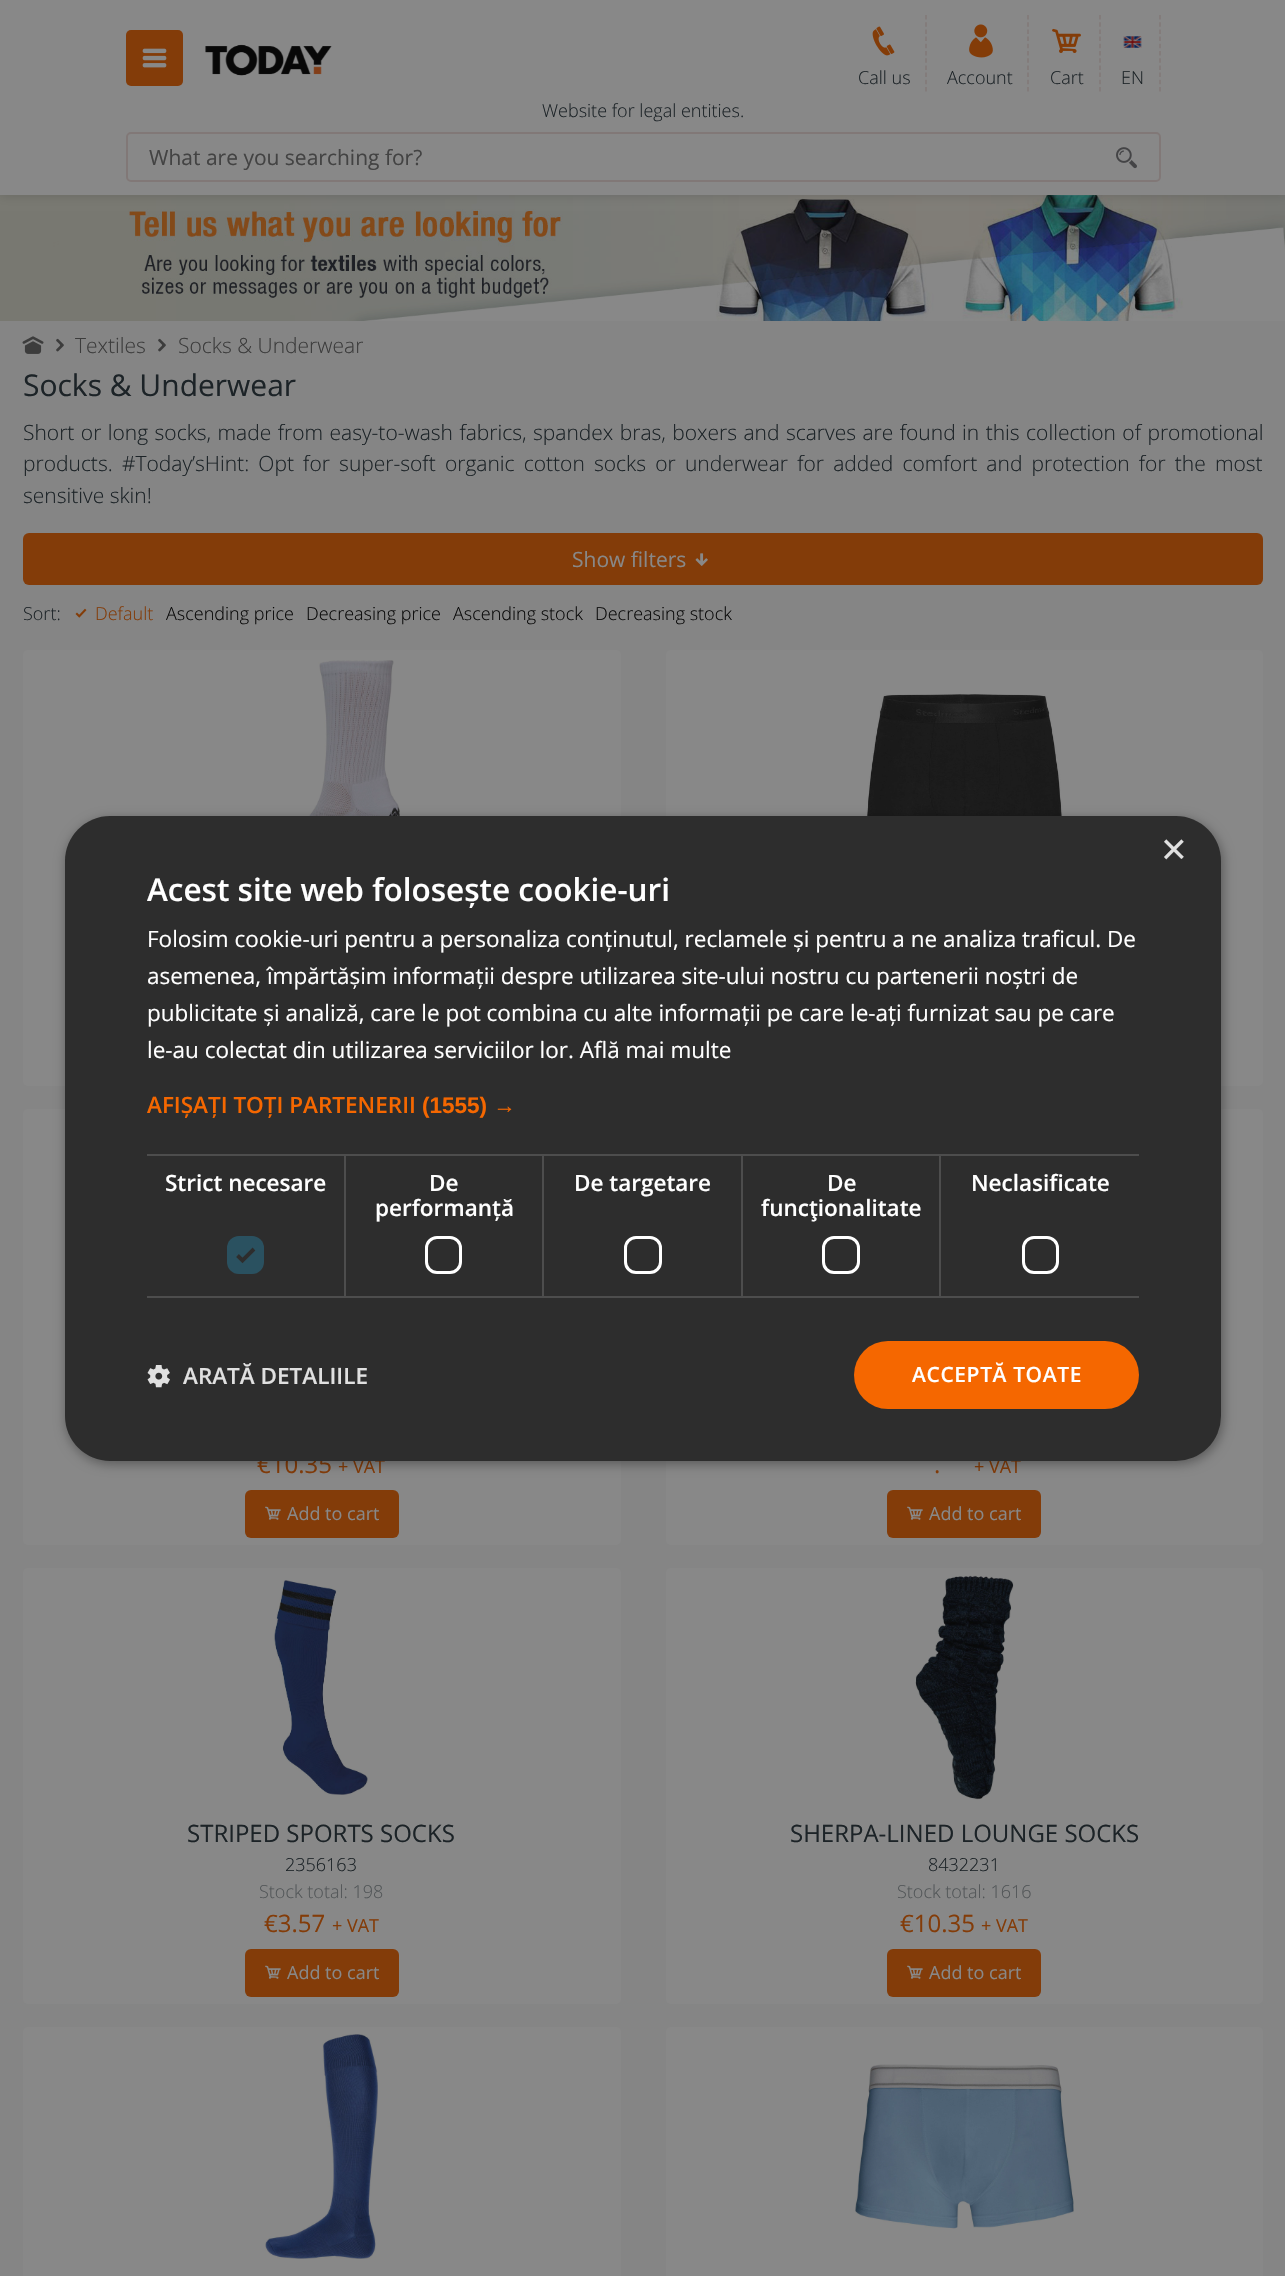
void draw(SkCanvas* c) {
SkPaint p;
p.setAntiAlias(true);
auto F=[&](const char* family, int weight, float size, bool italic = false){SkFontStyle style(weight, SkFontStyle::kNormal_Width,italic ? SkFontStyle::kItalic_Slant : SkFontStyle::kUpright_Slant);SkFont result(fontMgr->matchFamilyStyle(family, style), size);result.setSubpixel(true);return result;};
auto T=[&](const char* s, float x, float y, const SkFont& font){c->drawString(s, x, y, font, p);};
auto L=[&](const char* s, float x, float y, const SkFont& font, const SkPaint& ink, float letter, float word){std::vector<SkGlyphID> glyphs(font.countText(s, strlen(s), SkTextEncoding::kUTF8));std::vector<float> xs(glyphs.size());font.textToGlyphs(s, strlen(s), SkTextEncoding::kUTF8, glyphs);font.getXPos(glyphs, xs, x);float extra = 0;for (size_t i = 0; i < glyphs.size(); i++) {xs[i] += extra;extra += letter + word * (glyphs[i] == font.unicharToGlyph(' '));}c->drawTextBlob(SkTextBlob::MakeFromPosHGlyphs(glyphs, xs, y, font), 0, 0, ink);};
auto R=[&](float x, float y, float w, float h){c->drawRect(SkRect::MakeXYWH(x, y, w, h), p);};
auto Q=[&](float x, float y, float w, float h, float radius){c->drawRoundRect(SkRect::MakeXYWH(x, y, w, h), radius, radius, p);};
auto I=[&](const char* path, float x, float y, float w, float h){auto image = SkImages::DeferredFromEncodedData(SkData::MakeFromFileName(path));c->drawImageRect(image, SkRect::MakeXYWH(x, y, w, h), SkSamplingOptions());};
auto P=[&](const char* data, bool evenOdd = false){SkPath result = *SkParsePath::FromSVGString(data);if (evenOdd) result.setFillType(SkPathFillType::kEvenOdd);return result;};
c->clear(0xff858585);
I("8.png",0,195,1285,126);
p.setColor(0x26090909);
p.setMaskFilter(SkMaskFilter::MakeBlur(kNormal_SkBlurStyle, 5.5));
c->drawRect(SkRect::MakeXYWH(0,0,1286,195),p);
p.setMaskFilter(nullptr);
p.setColor(0xff888888);
R(0,0,1285,195);
p.setColor(0xff833c09);
Q(126,30,57,56,5);
I("1.png",142,48,25,20);
I("2.png",205,44,127,32);
p.setStroke(true);
p.setStrokeWidth(1.5);
p.setColor(0xff817877);
p.setPathEffect(SkDashPathEffect::Make({{4.5f,2.7f}}, 0));
c->drawPath(P("M926 15v76.5"),p);
p.setPathEffect(nullptr);
I("3.png",872,26,23,30);
auto f1 = F("Open Sans",300,18);
p.setStroke(false);
p.setColor(0xff1c2327);
T("Call us",858,84,f1);
p.setStroke(true);
p.setColor(0xff817877);
p.setPathEffect(SkDashPathEffect::Make({{4.5f,2.7f}}, 0));
c->drawPath(P("M1028 15v76.5"),p);
p.setPathEffect(nullptr);
I("4.png",969,24,24,34);
p.setStroke(false);
p.setColor(0xff1c2327);
T("Account",947,84,f1);
p.setStroke(true);
p.setColor(0xff817877);
p.setPathEffect(SkDashPathEffect::Make({{4.5f,2.7f}}, 0));
c->drawPath(P("M1100 15v76.5"),p);
p.setPathEffect(nullptr);
I("5.png",1052,28,29,25);
p.setStroke(false);
p.setColor(0xff1c2327);
T("Cart",1050,84,f1);
p.setStroke(true);
p.setColor(0xff817877);
p.setPathEffect(SkDashPathEffect::Make({{4.5f,2.7f}}, 0));
c->drawPath(P("M1160 15v76.5"),p);
p.setPathEffect(nullptr);
I("6.png",1123,36,19,12);
p.setStroke(false);
p.setColor(0xff1c2327);
T("EN",1121,84,f1);
T("Website for legal entities.",542,117,f1);
p.setStroke(true);
p.setStrokeWidth(2);
p.setColor(0xff817877);
c->drawRoundRect(SkRect::MakeXYWH(127,133,1033,48),4,4,p);
auto f2 = F("Open Sans",400,21);
p.setStroke(false);
p.setColor(0xff434343);
T("What are you searching for?",149,165,f2);
I("7.png",1116,147,21,22);
I("9.png",22,336,22,18);
I("10.png",56,338,8,14);
auto f3 = F("Open Sans",300,21);
p.setColor(0xff3c3c3c);
T("Textiles",75,353,f3);
I("10.png",158,338,8,14);
T("Socks & Underwear",178,353,f3);
auto f4 = F("Open Sans",400,30);
p.setColor(0xff1c2327);
T("Socks & Underwear",23,396,f4);
L("Short or long socks, made from easy-to-wash fabrics, spandex bras, boxers and scarves are found in this collection of promotional",23,440,f3,p,0,1);
L("products. #Today’sHint: Opt for super-soft organic cotton socks or underwear for added comfort and protection for the most",23,471,f3,p,0,3.75);
T("sensitive skin!",23,503,f3);
p.setColor(0xff833c09);
Q(23,533,1240,52,6);
p.setColor(0xff888888);
T("Show filters",572,567,f2);
I("11.png",695,553,13,13);
p.setColor(0xff1c2327);
T("Sort:",23,620,f1);
I("12.png",75,608,12,10);
p.setColor(0xff833c09);
T("Default",95,620,f1);
p.setColor(0xff090909);
T("Ascending price",166,620,f1);
T("Decreasing price",306,620,f1);
T("Ascending stock",453,620,f1);
T("Decreasing stock",595,620,f1);
p.setColor(0xff888888);
Q(23,650,598,436,5);
I("13.png",242,660,158,156);
Q(666,650,597,436,5);
I("14.png",866,694,197,122);
Q(23,1109,598,436,5);
auto f5 = F("Open Sans",400,24);
p.setColor(0xff833c09);
T("€10.35",257,1473,f5);
auto f6 = F("Open Sans",400,18);
T("+ VAT",338,1473,f6);
Q(245,1490,154,48,6);
I("15.png",265,1506,16,14);
p.setColor(0xff888888);
T("Add to cart",287,1520,f6);
Q(666,1109,597,436,5);
p.setColor(0xff833c09);
T(".",934,1473,f5);
T("+ VAT",974,1473,f6);
Q(887,1490,154,48,6);
I("15.png",907,1506,16,14);
p.setColor(0xff888888);
T("Add to cart",929,1520,f6);
Q(23,1568,598,436,5);
I("16.png",273,1580,95,215);
p.setColor(0xff1c2327);
T("STRIPED SPORTS SOCKS",187,1842,f5);
T("2356163",285,1871,f1);
p.setColor(0xff525658);
T("Stock total: 198",259,1898,f1);
p.setColor(0xff833c09);
T("€3.57",264,1932,f5);
T("+ VAT",332,1932,f6);
Q(245,1949,154,48,6);
I("15.png",265,1965,16,14);
p.setColor(0xff888888);
T("Add to cart",287,1979,f6);
Q(666,1568,597,436,5);
I("17.png",915,1575,99,225);
p.setColor(0xff1c2327);
T("SHERPA-LINED LOUNGE SOCKS",790,1842,f5);
T("8432231",928,1871,f1);
p.setColor(0xff525658);
T("Stock total: 1616",897,1898,f1);
p.setColor(0xff833c09);
T("€10.35",900,1932,f5);
T("+ VAT",981,1932,f6);
Q(887,1949,154,48,6);
I("15.png",907,1965,16,14);
p.setColor(0xff888888);
T("Add to cart",929,1979,f6);
Q(23,2027,598,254,5);
I("18.png",265,2034,113,225);
Q(666,2027,597,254,5);
I("19.png",855,2064,219,165);
p.setColor(0x59000000);
p.setMaskFilter(SkMaskFilter::MakeBlur(kNormal_SkBlurStyle, 6));
c->drawRoundRect(SkRect::MakeXYWH(66,819,1157,645),45,45,p);
p.setMaskFilter(nullptr);
p.setColor(0xff2d2d2d);
Q(65,816,1156,645,45);
auto f7 = F("Liberation Sans",400,44);
p.setColor(0xffe0e0e0);
T("×",1161,864,f7);
auto f8 = F("Open Sans",600,31.5);
p.setColor(0xffffffff);
T("Acest site web folosește cookie-uri",147,901,f8);
auto f9 = F("Open Sans",400,22.5);
T("Folosim cookie-uri pentru a personaliza conținutul, reclamele și pentru a ne analiza traficul. De",147,947,f9);
T("asemenea, împărtășim informații despre utilizarea site-ului nostru cu partenerii noștri de",147,984,f9);
T("publicitate și analiză, care le pot combina cu alte informații pe care le-ați furnizat sau pe care",147,1021,f9);
T("le-au colectat din utilizarea serviciilor lor. Află mai multe",147,1058,f9);
auto f10 = F("Open Sans",600,22.5);
p.setColor(0xfff56700);
T("AFIȘAȚI TOȚI PARTENERII",147,1113,f10);
auto f11 = F("Liberation Sans",700,22.5);
T("(1555) →",422,1113,f11);
p.setColor(0xff4d4d4d);
R(147,1154,198,2);
R(344,1154,2,144);
R(147,1296,198,2);
p.setColor(0xffffffff);
T("Strict necesare",165,1191,f10);
p.setColor(0xff2a5160);
Q(227,1236,37,38,12);
p.setStroke(true);
p.setStrokeWidth(3.9);
p.setColor(0xff2d2d2d);
c->drawPath(P("M237.5 1255.5l5 5l11.5-11.5"),p);
p.setStroke(false);
p.setColor(0xff4d4d4d);
R(345,1154,198,2);
R(542,1154,2,144);
R(345,1296,198,2);
p.setColor(0xffffffff);
T("De",429,1191,f10);
T("performanță",375,1216,f10);
p.setStroke(true);
p.setStrokeWidth(3);
c->drawRoundRect(SkRect::MakeXYWH(426.5,1237.5,34,35),10.5,10.5,p);
p.setStroke(false);
p.setColor(0xff4d4d4d);
R(543,1154,596,2);
R(741,1154,2,144);
R(543,1296,200,2);
p.setColor(0xffffffff);
T("De targetare",574,1191,f10);
p.setStroke(true);
c->drawRoundRect(SkRect::MakeXYWH(625.5,1237.5,35,35),10.5,10.5,p);
p.setStroke(false);
p.setColor(0xff4d4d4d);
R(939,1154,2,144);
R(743,1296,396,2);
p.setColor(0xffffffff);
T("De",827,1191,f10);
T("funcţionalitate",761,1216,f10);
p.setStroke(true);
c->drawRoundRect(SkRect::MakeXYWH(823.5,1237.5,35,35),10.5,10.5,p);
p.setStroke(false);
T("Neclasificate",971,1191,f10);
p.setStroke(true);
c->drawRoundRect(SkRect::MakeXYWH(1023.5,1237.5,34,35),10.5,10.5,p);
I("20.png",147,1365,23,23);
p.setStroke(false);
p.setColor(0xffe0e0e0);
T("ARATĂ DETALIILE",183,1384,f10);
p.setColor(0xfff56700);
Q(854,1341,285,68,34);
auto f12 = F("Open Sans",600,21);
p.setColor(0xffffffff);
L("ACCEPTĂ TOATE",912,1382,f12,p,.6,0);
}
